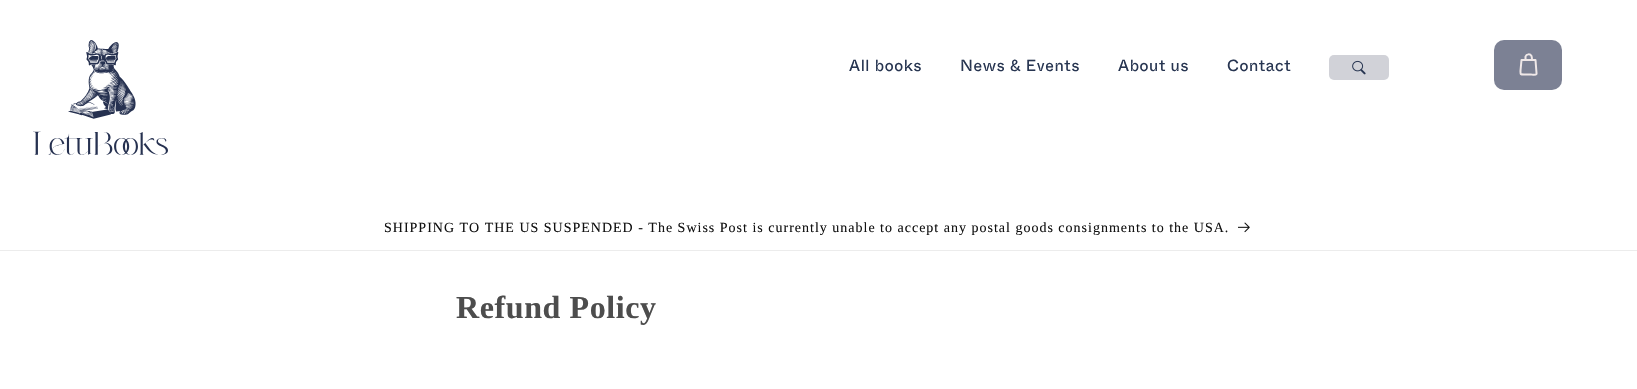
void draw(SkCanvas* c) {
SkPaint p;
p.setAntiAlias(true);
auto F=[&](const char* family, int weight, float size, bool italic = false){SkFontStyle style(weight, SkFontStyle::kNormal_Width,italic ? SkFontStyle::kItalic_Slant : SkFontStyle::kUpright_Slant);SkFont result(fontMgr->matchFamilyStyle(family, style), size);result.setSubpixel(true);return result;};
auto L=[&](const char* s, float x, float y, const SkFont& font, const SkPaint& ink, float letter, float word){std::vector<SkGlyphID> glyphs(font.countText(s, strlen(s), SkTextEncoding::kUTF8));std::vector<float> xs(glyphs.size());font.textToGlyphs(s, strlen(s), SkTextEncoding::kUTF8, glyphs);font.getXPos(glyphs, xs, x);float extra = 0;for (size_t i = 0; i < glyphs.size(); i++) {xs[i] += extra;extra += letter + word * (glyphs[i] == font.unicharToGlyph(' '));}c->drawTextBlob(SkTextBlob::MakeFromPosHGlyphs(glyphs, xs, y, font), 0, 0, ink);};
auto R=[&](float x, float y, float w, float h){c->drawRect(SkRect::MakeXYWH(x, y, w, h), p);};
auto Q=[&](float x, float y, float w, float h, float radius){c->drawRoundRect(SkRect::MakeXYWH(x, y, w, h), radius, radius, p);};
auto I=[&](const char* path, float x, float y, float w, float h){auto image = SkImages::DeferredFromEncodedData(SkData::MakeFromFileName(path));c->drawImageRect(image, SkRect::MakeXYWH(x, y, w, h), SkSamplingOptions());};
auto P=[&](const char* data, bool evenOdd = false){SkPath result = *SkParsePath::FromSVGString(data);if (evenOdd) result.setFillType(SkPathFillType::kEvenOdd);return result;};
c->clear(0xffffffff);
I("1.png",33,40,135,115);
auto f1 = F("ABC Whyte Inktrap",400,16);
p.setColor(0xff273551);
L("All books",849,71,f1,p,.6,0);
L("News & Events",960,71,f1,p,.6,0);
L("About us",1118,71,f1,p,.6,0);
L("Contact",1227,71,f1,p,.6,0);
p.setColor(0xffd1d2d8);
Q(1329,55,60,25,5);
I("2.png",1352,60,14,15);
p.setColor(0xff7c8194);
Q(1494,40,68,50,10);
p.setStroke(true);
p.setStrokeWidth(2);
p.setStrokeCap(SkPaint::kRound_Cap);
p.setStrokeJoin(SkPaint::kRound_Join);
p.setColor(0xffefe8e8);
c->drawPath(P("M1536.5 73v1c-1 1.5-4.5 .5-5.5 .5h-7c-4 0-3.5 0-3.5-4l1-10.5h14zm-11-13v-3.5c1-2.5 4.5-3 6-.5c.5 1.5 .5 2.5 .5 4"),p);
p.setStroke(false);
p.setColor(0xffececec);
R(0,250,1637,1);
auto f2 = F("Liberation Serif",400,14);
p.setColor(0xff121212);
L("SHIPPING TO THE US SUSPENDED - The Swiss Post is currently unable to accept any postal goods consignments to the USA.",384,232,f2,p,1,0);
I("3.png",1238,222,12,11);
auto f3 = F("Liberation Serif",700,32);
p.setColor(0xff4d4d4d);
L("Refund Policy",456,318,f3,p,.6,0);
}
